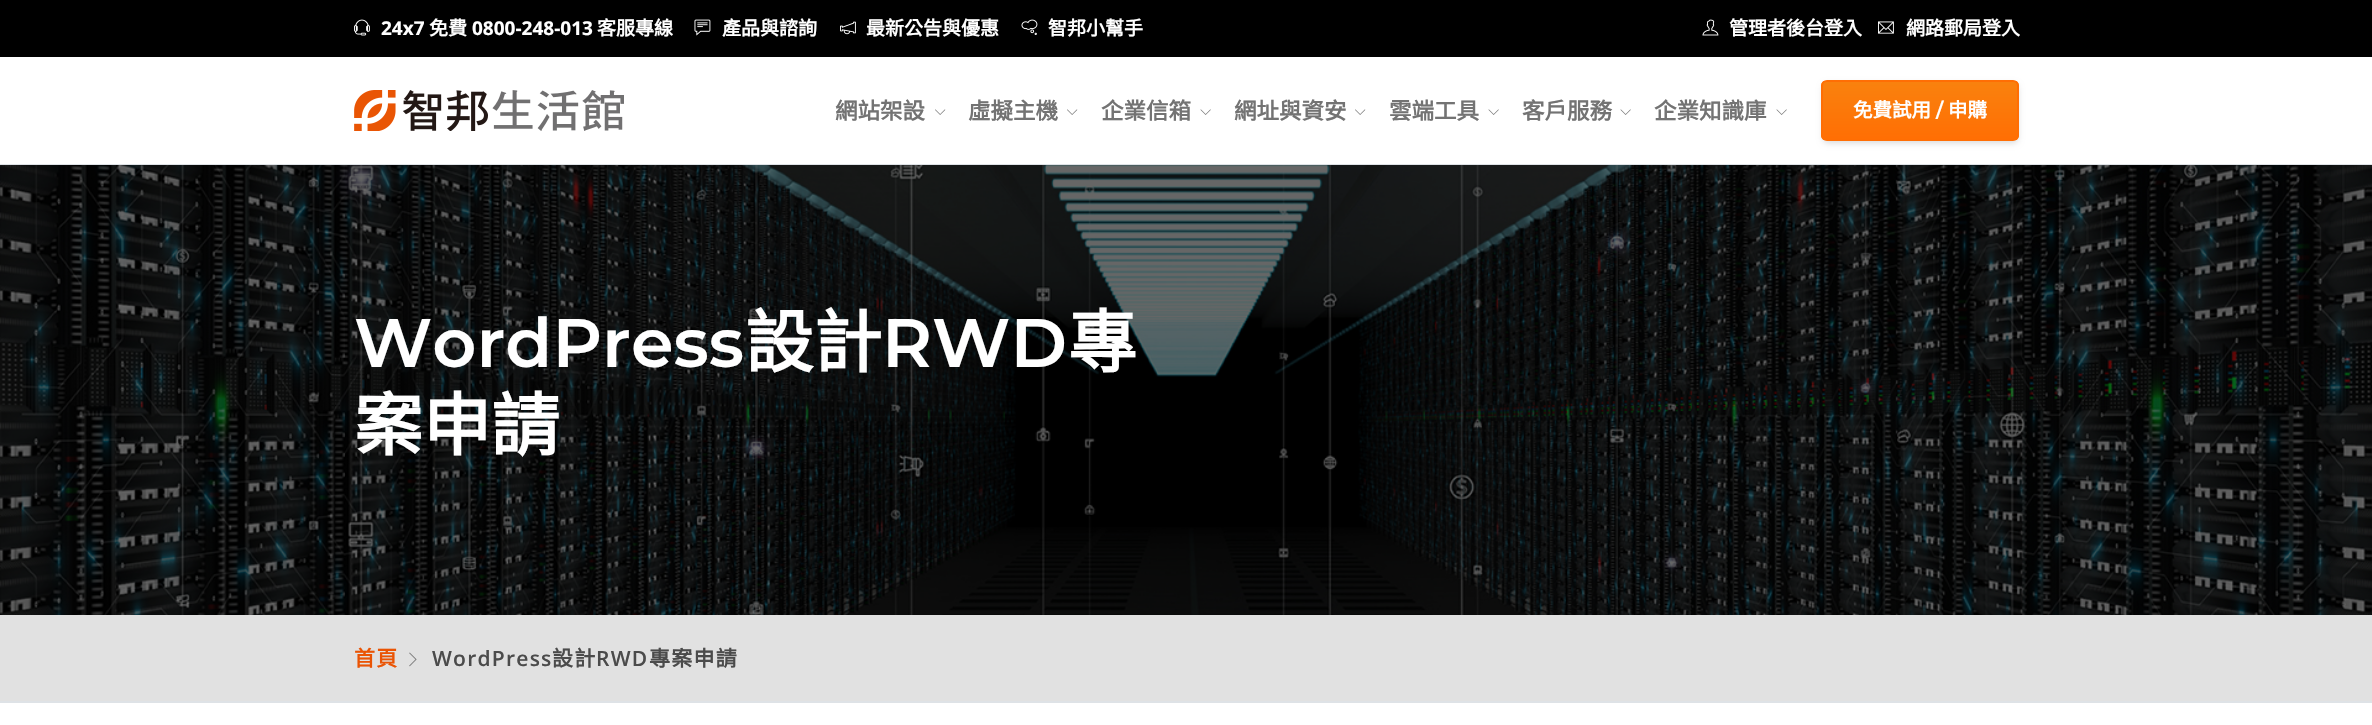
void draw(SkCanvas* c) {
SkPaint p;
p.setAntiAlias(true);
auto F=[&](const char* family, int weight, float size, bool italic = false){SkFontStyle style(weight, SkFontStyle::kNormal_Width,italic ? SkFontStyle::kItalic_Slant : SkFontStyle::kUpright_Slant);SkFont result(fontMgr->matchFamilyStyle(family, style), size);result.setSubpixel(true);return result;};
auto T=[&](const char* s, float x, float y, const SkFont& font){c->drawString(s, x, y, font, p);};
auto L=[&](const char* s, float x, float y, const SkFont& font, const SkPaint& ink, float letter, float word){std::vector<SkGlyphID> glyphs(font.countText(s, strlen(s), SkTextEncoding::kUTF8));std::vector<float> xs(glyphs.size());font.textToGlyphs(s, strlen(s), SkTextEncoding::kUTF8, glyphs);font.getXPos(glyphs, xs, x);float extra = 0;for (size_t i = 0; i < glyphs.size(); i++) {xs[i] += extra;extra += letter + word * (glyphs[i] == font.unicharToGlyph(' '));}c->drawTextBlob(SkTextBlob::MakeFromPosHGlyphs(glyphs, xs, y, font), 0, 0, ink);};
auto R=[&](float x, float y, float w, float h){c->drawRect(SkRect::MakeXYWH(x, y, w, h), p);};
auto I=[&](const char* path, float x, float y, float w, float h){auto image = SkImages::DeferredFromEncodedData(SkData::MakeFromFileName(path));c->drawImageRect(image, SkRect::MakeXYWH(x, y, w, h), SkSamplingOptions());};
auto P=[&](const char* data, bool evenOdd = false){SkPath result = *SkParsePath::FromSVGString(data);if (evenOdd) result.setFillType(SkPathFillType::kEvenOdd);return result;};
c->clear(0xffffffff);
p.setColor(0xff000000);
R(0,0,2372,57);
I("1.png",354,19,16,17);
auto f1 = F("Open Sans",700,19);
p.setColor(0xffffffff);
T("24x7",381,35,f1);
auto f2 = F("Noto Sans CJK TC",700,19);
T("免費",429,35,f2);
T("0800-248-013",472,35,f1);
T("客服專線",597,35,f2);
I("2.png",694,19,17,17);
T("產品與諮詢",722,35,f2);
I("3.png",840,21,16,14);
T("最新公告與優惠",866,35,f2);
I("4.png",1021,19,17,16);
T("智邦小幫手",1048,35,f2);
I("5.png",1702,19,17,17);
T("管理者後台登入",1729,35,f2);
I("6.png",1878,21,16,13);
T("網路郵局登入",1906,35,f2);
p.setColor(0xffdee2e6);
R(0,164,2372,1);
I("7.png",354,90,270,41);
auto f3 = F("Noto Sans CJK TC",700,22.5);
p.setColor(0xff737373);
T("網站架設",835,119,f3);
I("8.png",935,109,11,6);
T("虛擬主機",968,119,f3);
I("8.png",1067,109,11,6);
T("企業信箱",1101,119,f3);
I("9.png",1200,109,11,6);
T("網址與資安",1234,119,f3);
I("8.png",1355,109,11,6);
T("雲端工具",1389,119,f3);
I("9.png",1488,109,11,6);
T("客戶服務",1522,119,f3);
I("9.png",1620,109,11,6);
T("企業知識庫",1654,119,f3);
I("9.png",1776,109,11,6);
p.setColor(0x26000000);
p.setMaskFilter(SkMaskFilter::MakeBlur(kNormal_SkBlurStyle, 3));
c->drawRoundRect(SkRect::MakeXYWH(1823,84,195,59),5,5,p);
p.setMaskFilter(nullptr);
c->save();
c->clipPath(P("M1827 80h186c3.5 0 6 2.5 6 6v49c0 3.5-2.5 6-6 6h-186c-3.5 0-6-2.5-6-6v-49c0-3.5 2.5-6 6-6z"),true);
{
const SkColor colors[] = {0xfff9820e,0xffff6e04};
const float stops[] = {0,1};
const SkPoint ends[] = {{1920,81}, {1920,140}};
p.setShader(SkGradientShader::MakeLinear(ends, colors, stops, 2, SkTileMode::kClamp));
p.setAlpha(255);
}
R(1821,81,198,59);
c->restore();
p.setStroke(true);
p.setStrokeWidth(2);
p.setShader(nullptr);
p.setColor(0xffff6e04);
c->drawRoundRect(SkRect::MakeXYWH(1822,81,196,59),5,5,p);
auto f4 = F("Noto Sans CJK TC",700,19.5);
p.setStroke(false);
p.setColor(0xffffffff);
T("免費試用",1853,117,f4);
auto f5 = F("Montserrat",600,19.5);
T("/",1936,117,f5);
T("申購",1948,117,f4);
I("10.png",0,165,2372,450);
auto f6 = F("Montserrat",600,68.5);
T("WordPress",354,367,f6);
auto f7 = F("Noto Sans CJK TC",700,68.5);
T("設計",745,367,f7);
T("RWD",882,367,f6);
T("專",1068,367,f7);
T("案申請",354,450,f7);
p.setColor(0xffe1e1e1);
R(0,615,2372,86);
p.setColor(0xffdee2e6);
R(0,701,2372,2);
auto f8 = F("Noto Sans CJK TC",700,21);
p.setColor(0xffea5404);
L("首頁",354,666,f8,p,1.25,0);
I("11.png",409,652,8,15);
auto f9 = F("Open Sans",600,21);
p.setColor(0xff4b4b4b);
L("WordPress",432,666,f9,p,1.25,0);
L("設計",552,666,f8,p,1.25,0);
L("RWD",596,666,f9,p,1.25,0);
L("專案申請",649,666,f8,p,1.25,0);
}
